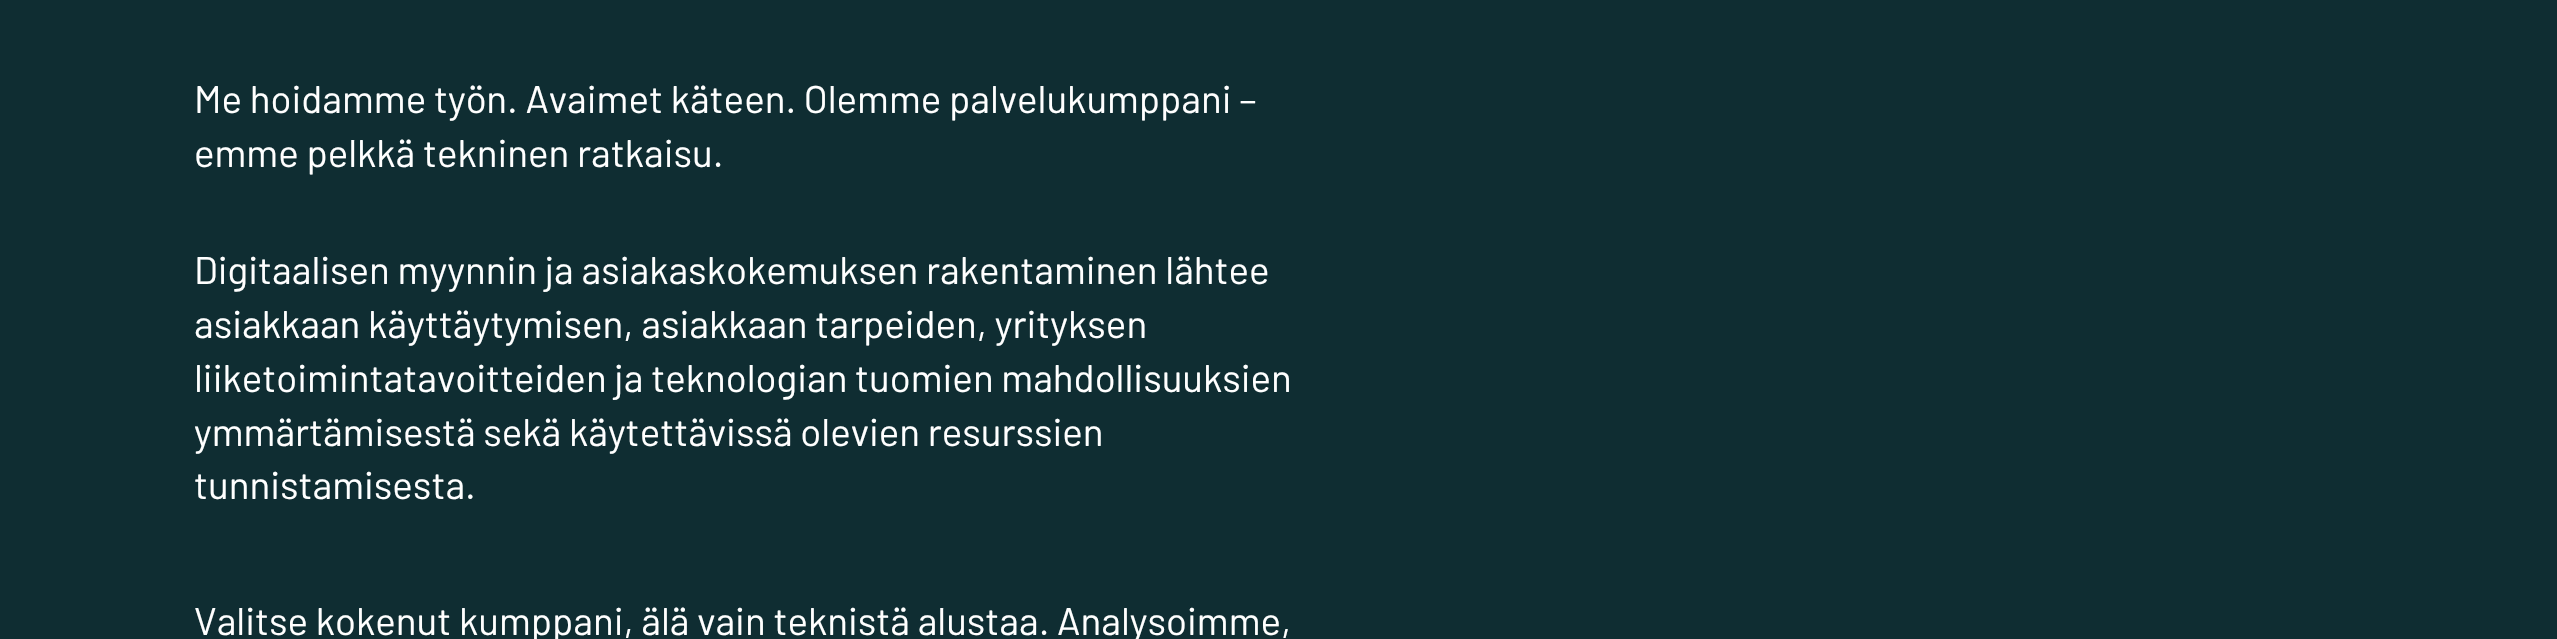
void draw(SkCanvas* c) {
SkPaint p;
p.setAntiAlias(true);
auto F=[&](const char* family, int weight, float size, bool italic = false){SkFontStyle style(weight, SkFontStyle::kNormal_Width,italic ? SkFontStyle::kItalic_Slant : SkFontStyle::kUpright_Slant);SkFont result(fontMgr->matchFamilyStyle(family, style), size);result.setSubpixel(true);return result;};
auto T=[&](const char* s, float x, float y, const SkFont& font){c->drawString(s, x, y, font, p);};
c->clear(0xff0f2d32);
auto f1 = F("Barlow",400,38.5);
p.setColor(0xffffffff);
T("Me hoidamme työn. Avaimet käteen. Olemme palvelukumppani –",194,113,f1);
T("emme pelkkä tekninen ratkaisu.",194,167,f1);
T("Digitaalisen myynnin ja asiakaskokemuksen rakentaminen lähtee",194,284,f1);
T("asiakkaan käyttäytymisen, asiakkaan tarpeiden, yrityksen",194,338,f1);
T("liiketoimintatavoitteiden ja teknologian tuomien mahdollisuuksien",194,392,f1);
T("ymmärtämisestä sekä käytettävissä olevien resurssien",194,446,f1);
T("tunnistamisesta.",194,499,f1);
T("Valitse kokenut kumppani, älä vain teknistä alustaa. Analysoimme,",194,635,f1);
}
